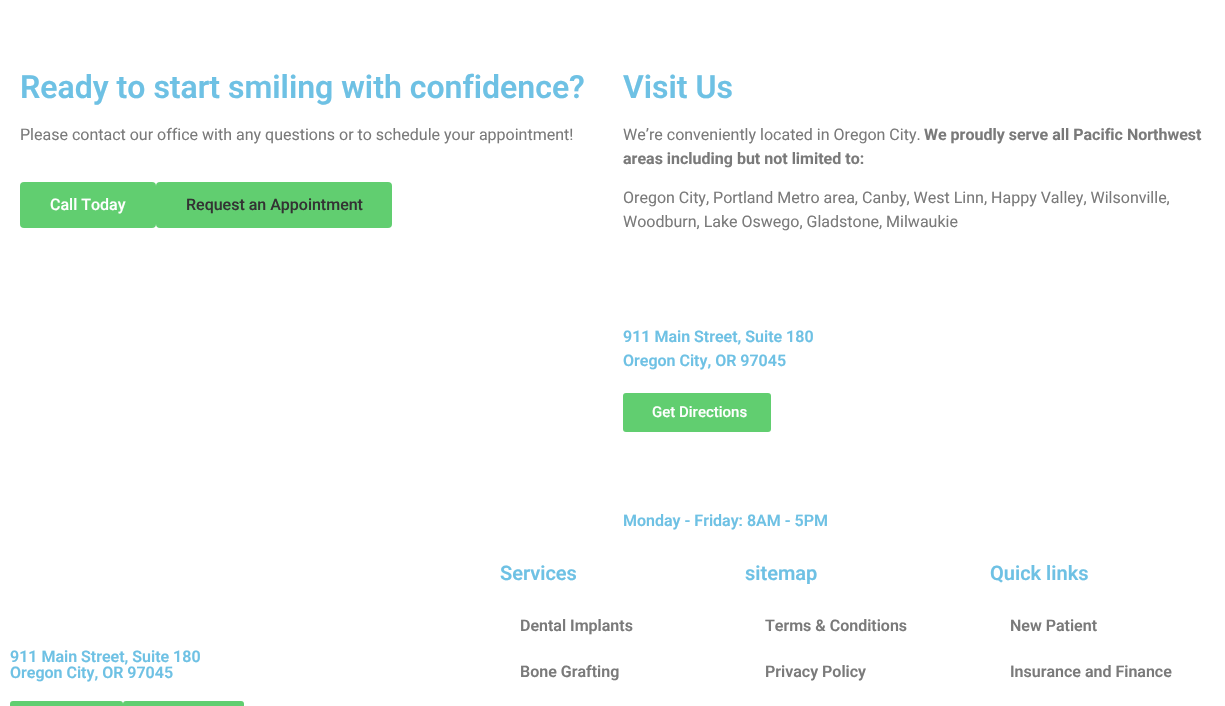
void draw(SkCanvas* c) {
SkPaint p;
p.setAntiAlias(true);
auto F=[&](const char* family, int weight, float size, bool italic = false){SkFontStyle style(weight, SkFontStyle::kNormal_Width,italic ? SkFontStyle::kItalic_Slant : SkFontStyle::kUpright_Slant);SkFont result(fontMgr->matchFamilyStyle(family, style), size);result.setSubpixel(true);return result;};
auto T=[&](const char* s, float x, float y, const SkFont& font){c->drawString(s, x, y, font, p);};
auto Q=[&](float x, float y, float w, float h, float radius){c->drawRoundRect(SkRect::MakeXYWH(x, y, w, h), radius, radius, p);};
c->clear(0xffffffff);
auto f1 = F("Roboto",600,32);
p.setColor(0xff6ec1e4);
T("Ready to start smiling with confidence?",20,98,f1);
auto f2 = F("Roboto",400,16);
p.setColor(0xff7a7a7a);
T("Please contact our office with any questions or to schedule your appointment!",20,140,f2);
p.setColor(0xff61ce70);
Q(20,182,136,46,4);
auto f3 = F("Roboto",500,16);
p.setColor(0xffffffff);
T("Call Today",50,210,f3);
p.setColor(0xff61ce70);
Q(156,182,236,46,4);
p.setColor(0xff333333);
T("Request an Appointment",186,210,f3);
p.setColor(0xff6ec1e4);
T("Visit Us",623,98,f1);
p.setColor(0xff7a7a7a);
T("We’re conveniently located in Oregon City.",623,140,f2);
auto f4 = F("Roboto",700,16);
T("We proudly serve all Pacific Northwest",924,140,f4);
T("areas including but not limited to:",623,164,f4);
T("Oregon City, Portland Metro area, Canby, West Linn, Happy Valley, Wilsonville,",623,203,f2);
T("Woodburn, Lake Oswego, Gladstone, Milwaukie",623,227,f2);
auto f5 = F("Roboto",600,16);
p.setColor(0xff6ec1e4);
T("911 Main Street, Suite 180",623,342,f5);
T("Oregon City, OR 97045",623,366,f5);
p.setColor(0xff61ce70);
Q(623,393,148,39,3);
auto f6 = F("Roboto",500,15);
p.setColor(0xffffffff);
T("Get Directions",652,417,f6);
p.setColor(0xff6ec1e4);
T("Monday - Friday: 8AM - 5PM",623,526,f5);
T("911 Main Street, Suite 180",10,662,f5);
T("Oregon City, OR 97045",10,678,f5);
p.setColor(0xff61ce70);
Q(10,701,113,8,3);
Q(123,701,121,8,3);
auto f7 = F("Roboto",600,20);
p.setColor(0xff6ec1e4);
T("Services",500,580,f7);
p.setColor(0xff7a7a7a);
T("Dental Implants",520,631,f5);
T("Bone Grafting",520,677,f5);
p.setColor(0xff6ec1e4);
T("sitemap",745,580,f7);
p.setColor(0xff7a7a7a);
T("Terms & Conditions",765,631,f5);
T("Privacy Policy",765,677,f5);
p.setColor(0xff6ec1e4);
T("Quick links",990,580,f7);
p.setColor(0xff7a7a7a);
T("New Patient",1010,631,f5);
T("Insurance and Finance",1010,677,f5);
}
